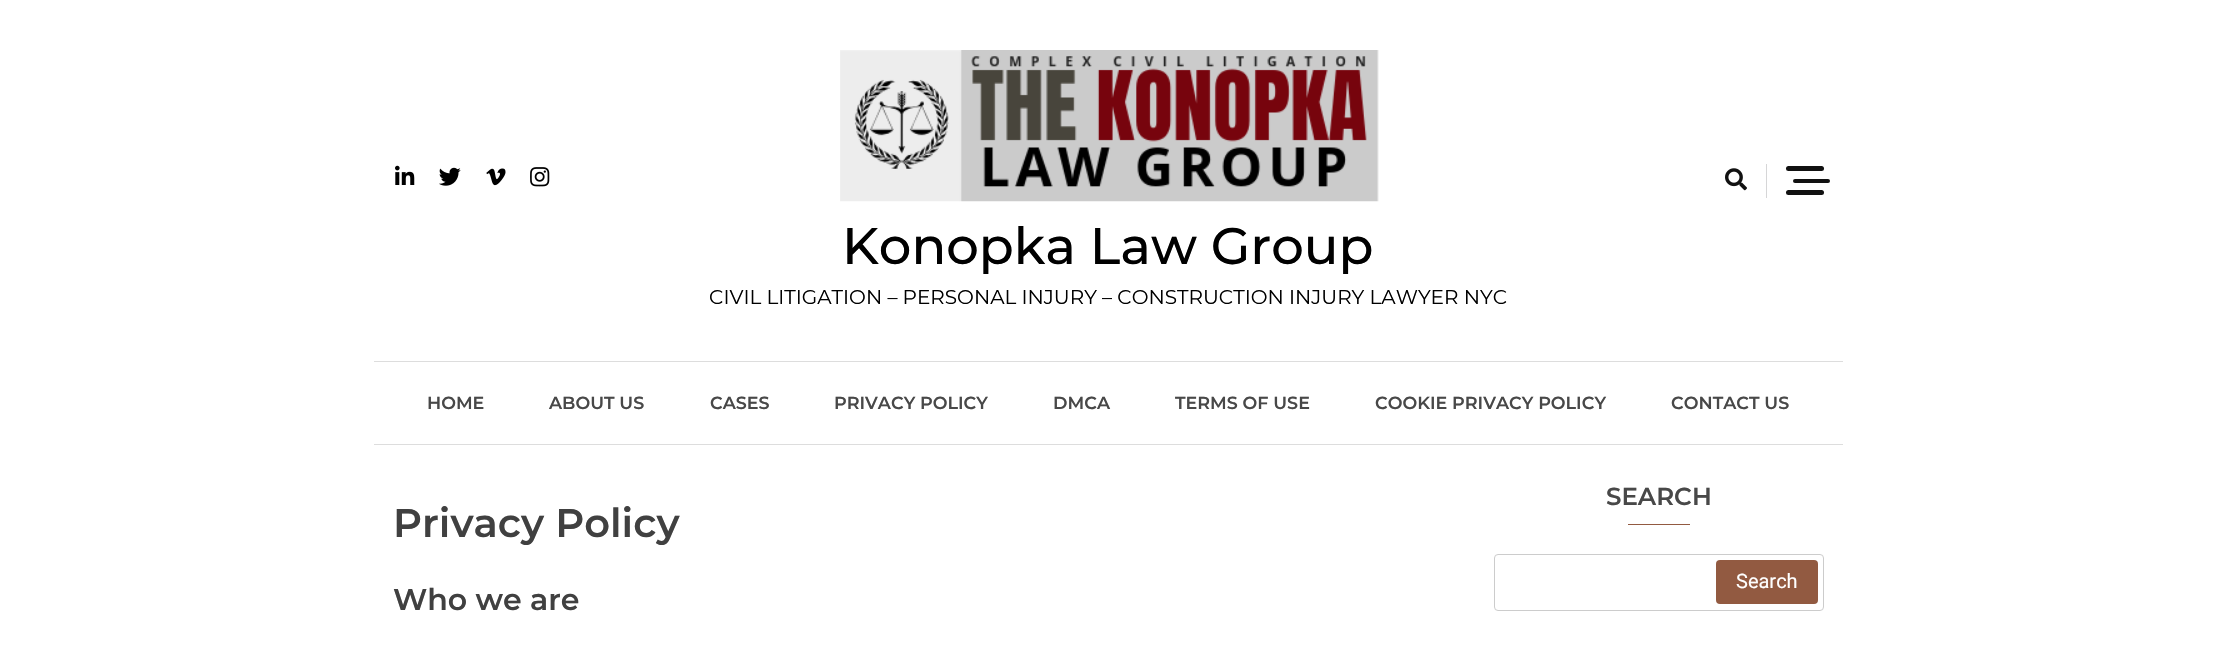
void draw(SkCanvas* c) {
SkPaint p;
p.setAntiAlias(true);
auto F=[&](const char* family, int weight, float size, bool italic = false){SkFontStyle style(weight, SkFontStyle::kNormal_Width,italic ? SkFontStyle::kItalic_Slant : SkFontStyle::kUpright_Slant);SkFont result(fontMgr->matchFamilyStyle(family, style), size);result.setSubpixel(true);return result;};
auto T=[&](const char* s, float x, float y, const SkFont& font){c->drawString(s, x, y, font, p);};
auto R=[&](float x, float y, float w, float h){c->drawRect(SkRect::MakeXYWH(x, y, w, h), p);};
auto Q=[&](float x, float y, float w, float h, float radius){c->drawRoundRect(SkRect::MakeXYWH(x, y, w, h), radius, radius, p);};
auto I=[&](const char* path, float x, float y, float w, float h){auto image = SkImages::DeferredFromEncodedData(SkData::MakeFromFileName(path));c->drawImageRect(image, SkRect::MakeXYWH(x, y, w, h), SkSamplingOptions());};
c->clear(0xffffffff);
I("1.png",395,165,20,20);
I("2.png",439,167,22,19);
I("3.png",486,168,20,18);
I("4.png",530,167,20,20);
p.setColor(0xffd6d6d7);
R(1766,164,1,34);
I("5.png",1725,168,22,23);
p.setColor(0xff111111);
Q(1786,166,38,5,2.5);
Q(1793,179,37,4,2);
Q(1786,190,38,5,2.5);
I("6.png",840,50,539,152);
auto f1 = F("Montserrat",500,51.25);
p.setColor(0xff000000);
T("Konopka Law Group",842,264,f1);
auto f2 = F("Montserrat",400,20);
T("CIVIL LITIGATION – PERSONAL INJURY – CONSTRUCTION INJURY LAWYER NYC",709,304,f2);
p.setColor(0xffdddddd);
R(374,361,1469,1);
R(374,444,1469,1);
auto f3 = F("Montserrat",600,17.5);
p.setColor(0xff484848);
T("HOME",427,409,f3);
T("ABOUT US",549,409,f3);
T("CASES",710,409,f3);
T("PRIVACY POLICY",834,409,f3);
T("DMCA",1053,409,f3);
T("TERMS OF USE",1175,409,f3);
T("COOKIE PRIVACY POLICY",1375,409,f3);
T("CONTACT US",1671,409,f3);
auto f4 = F("Montserrat",600,40);
p.setColor(0xff404040);
T("Privacy Policy",393,537,f4);
auto f5 = F("Montserrat",600,30);
T("Who we are",393,610,f5);
auto f6 = F("Montserrat",600,24.5);
p.setColor(0xff484848);
T("SEARCH",1606,505,f6);
p.setColor(0xff925a41);
R(1628,524,62,1);
p.setStroke(true);
p.setStrokeWidth(1);
p.setColor(0xffcccccc);
c->drawRoundRect(SkRect::MakeXYWH(1494.5,554.5,329,56),3.5,3.5,p);
p.setStroke(false);
p.setColor(0xff925a41);
Q(1716,560,102,44,4);
auto f7 = F("Roboto",400,20);
p.setColor(0xffffffff);
T("Search",1736,588,f7);
}
